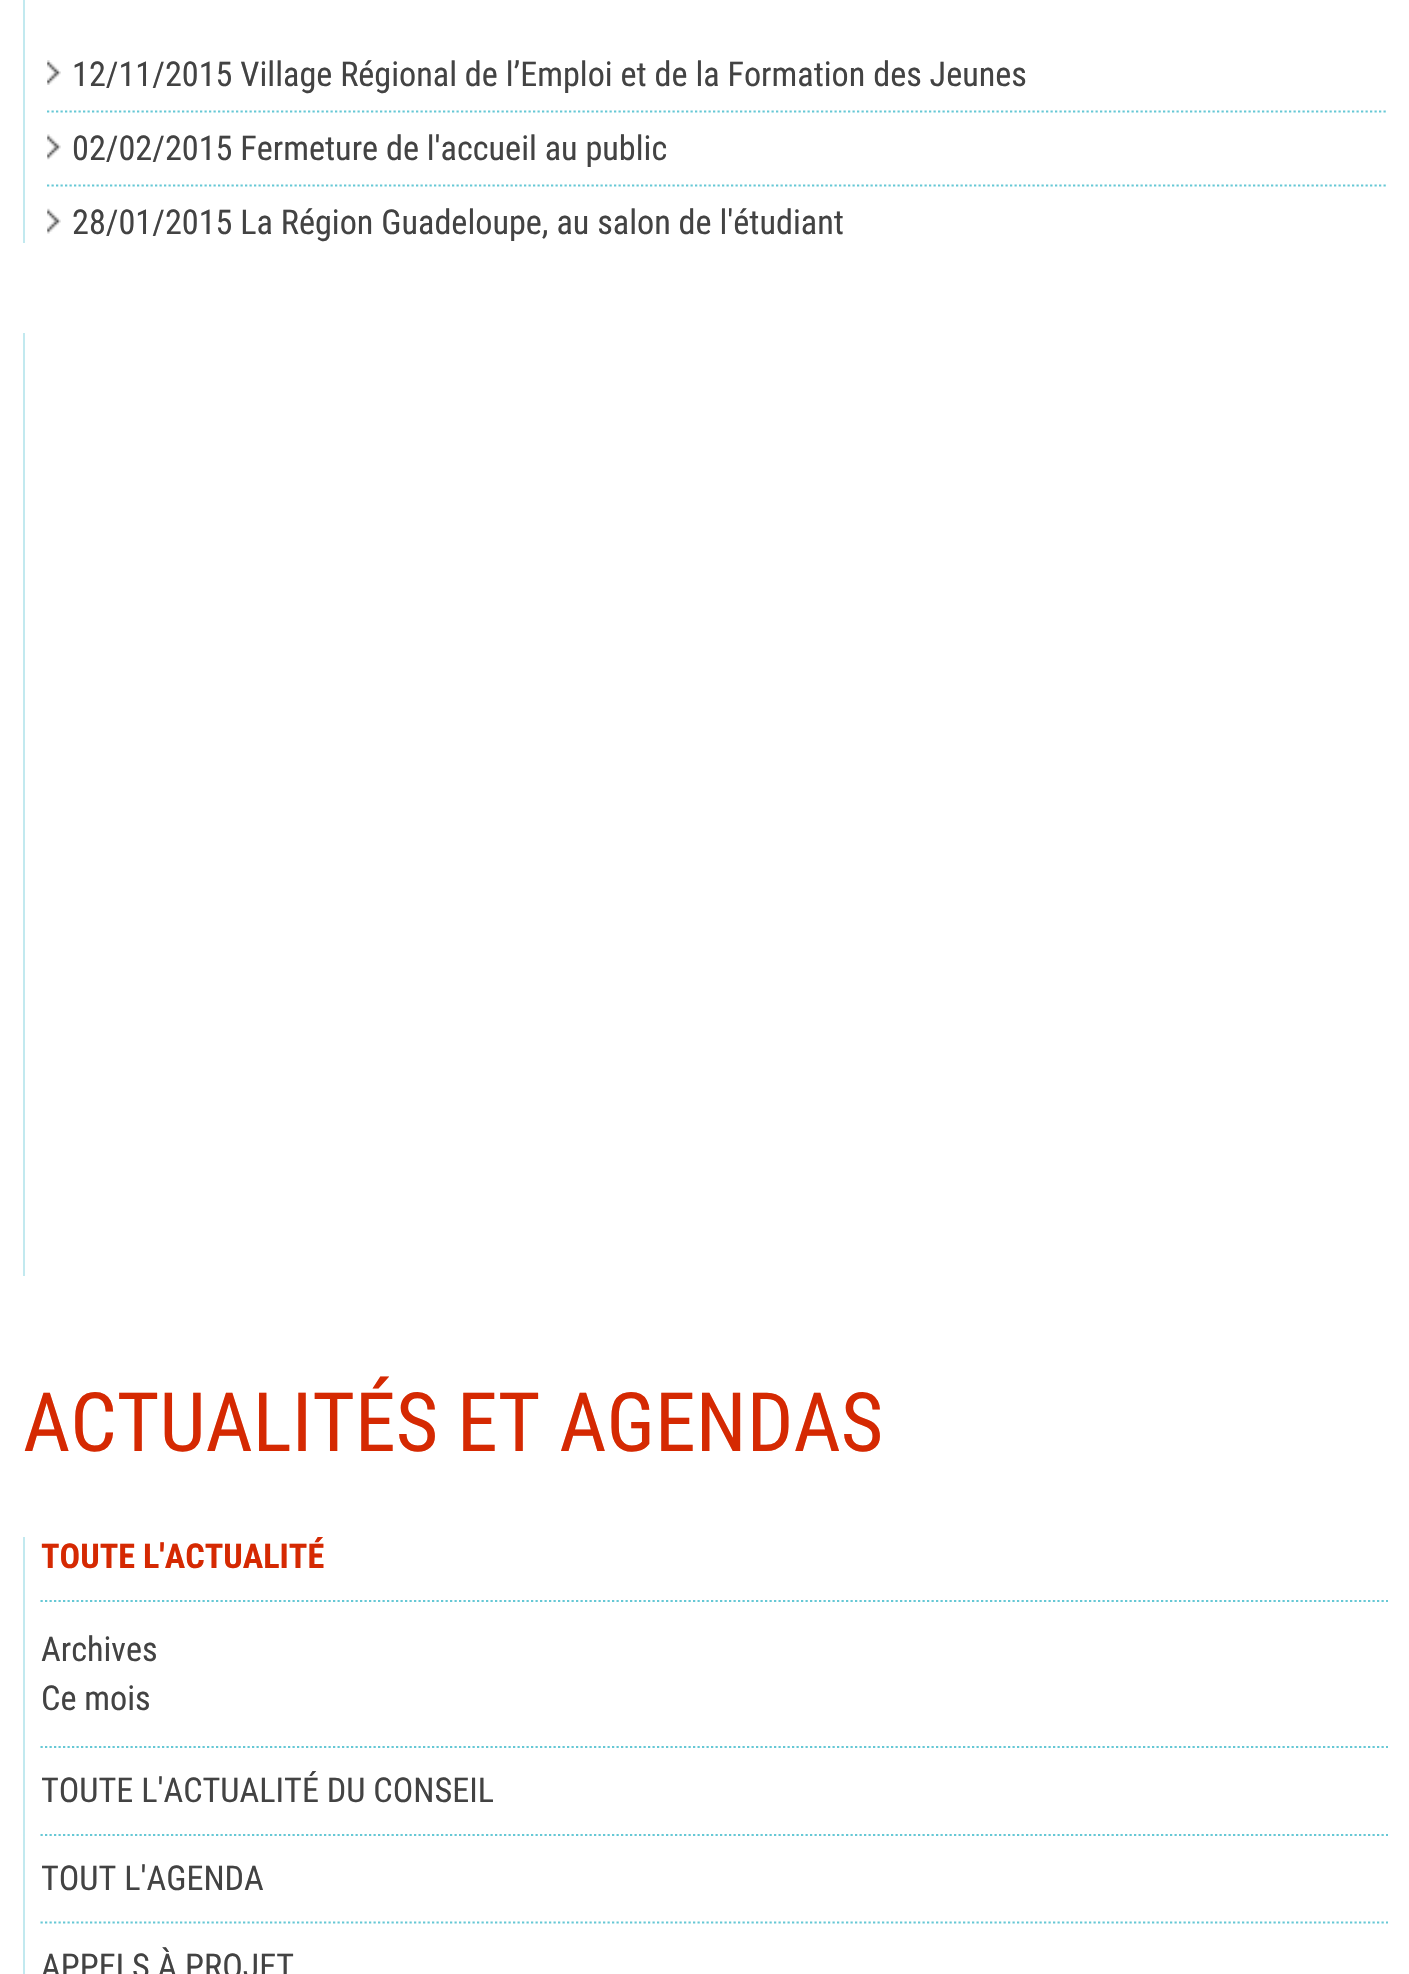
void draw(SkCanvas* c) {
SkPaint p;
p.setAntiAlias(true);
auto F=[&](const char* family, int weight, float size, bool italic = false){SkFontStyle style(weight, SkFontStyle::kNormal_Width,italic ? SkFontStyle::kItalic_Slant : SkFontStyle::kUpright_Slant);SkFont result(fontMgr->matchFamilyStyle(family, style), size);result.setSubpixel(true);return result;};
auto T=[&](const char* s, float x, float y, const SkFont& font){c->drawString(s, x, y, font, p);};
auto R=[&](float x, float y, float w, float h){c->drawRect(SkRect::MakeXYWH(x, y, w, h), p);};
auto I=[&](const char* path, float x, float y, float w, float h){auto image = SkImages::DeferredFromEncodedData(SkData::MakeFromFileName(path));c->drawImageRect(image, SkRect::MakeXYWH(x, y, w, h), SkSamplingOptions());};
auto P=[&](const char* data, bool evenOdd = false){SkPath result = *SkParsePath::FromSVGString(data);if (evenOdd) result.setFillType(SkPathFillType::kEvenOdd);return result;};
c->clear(0xffffffff);
p.setColor(0xffc2e9ef);
R(23,0,2,243);
p.setStroke(true);
p.setStrokeWidth(2.2);
p.setColor(0xff66c8d5);
p.setPathEffect(SkDashPathEffect::Make({{2.25f,2.25f}}, 0));
c->drawPath(P("M47 111.5h1341"),p);
p.setPathEffect(nullptr);
I("1.png",47,60,14,25);
auto f1 = F("Roboto Condensed",400,34.2);
p.setStroke(false);
p.setColor(0xff434343);
T("12/11/2015 Village Régional de l’Emploi et de la Formation des Jeunes",72,86,f1);
p.setStroke(true);
p.setColor(0xff66c8d5);
p.setPathEffect(SkDashPathEffect::Make({{2.25f,2.25f}}, 0));
c->drawPath(P("M47 185.5h1341"),p);
p.setPathEffect(nullptr);
I("2.png",47,134,14,26);
p.setStroke(false);
p.setColor(0xff434343);
T("02/02/2015 Fermeture de l'accueil au public",72,160,f1);
I("3.png",47,208,14,26);
T("28/01/2015 La Région Guadeloupe, au salon de l'étudiant",72,234,f1);
p.setColor(0xffc2e9ef);
R(23,333,2,943);
auto f2 = F("Roboto Condensed",400,82);
p.setColor(0xffd52902);
T("ACTUALITÉS ET AGENDAS",23,1451,f2);
p.setColor(0xffc2e9ef);
R(23,1537,2,437);
p.setStroke(true);
p.setColor(0xff66c8d5);
p.setPathEffect(SkDashPathEffect::Make({{2.25f,2.25f}}, 0));
c->drawPath(P("M40.5 1601h1347.5"),p);
p.setPathEffect(nullptr);
auto f3 = F("Roboto Condensed",700,34.2);
p.setStroke(false);
p.setColor(0xffd52902);
T("TOUTE L'ACTUALITÉ",41,1568,f3);
p.setStroke(true);
p.setColor(0xff66c8d5);
p.setPathEffect(SkDashPathEffect::Make({{2.25f,2.25f}}, 0));
c->drawPath(P("M40.5 1747h1347.5"),p);
p.setPathEffect(nullptr);
p.setStroke(false);
p.setColor(0xff434343);
T("Archives",41,1661,f1);
T("Ce mois",41,1710,f1);
p.setStroke(true);
p.setColor(0xff66c8d5);
p.setPathEffect(SkDashPathEffect::Make({{2.25f,2.25f}}, 0));
c->drawPath(P("M40.5 1835h1347.5"),p);
p.setPathEffect(nullptr);
p.setStroke(false);
p.setColor(0xff434343);
T("TOUTE L'ACTUALITÉ DU CONSEIL",41,1802,f1);
p.setStroke(true);
p.setColor(0xff66c8d5);
p.setPathEffect(SkDashPathEffect::Make({{2.25f,2.25f}}, 0));
c->drawPath(P("M40.5 1922.5h1347.5"),p);
p.setPathEffect(nullptr);
p.setStroke(false);
p.setColor(0xff434343);
T("TOUT L'AGENDA",41,1890,f1);
T("APPELS À PROJET",41,1978,f1);
}
